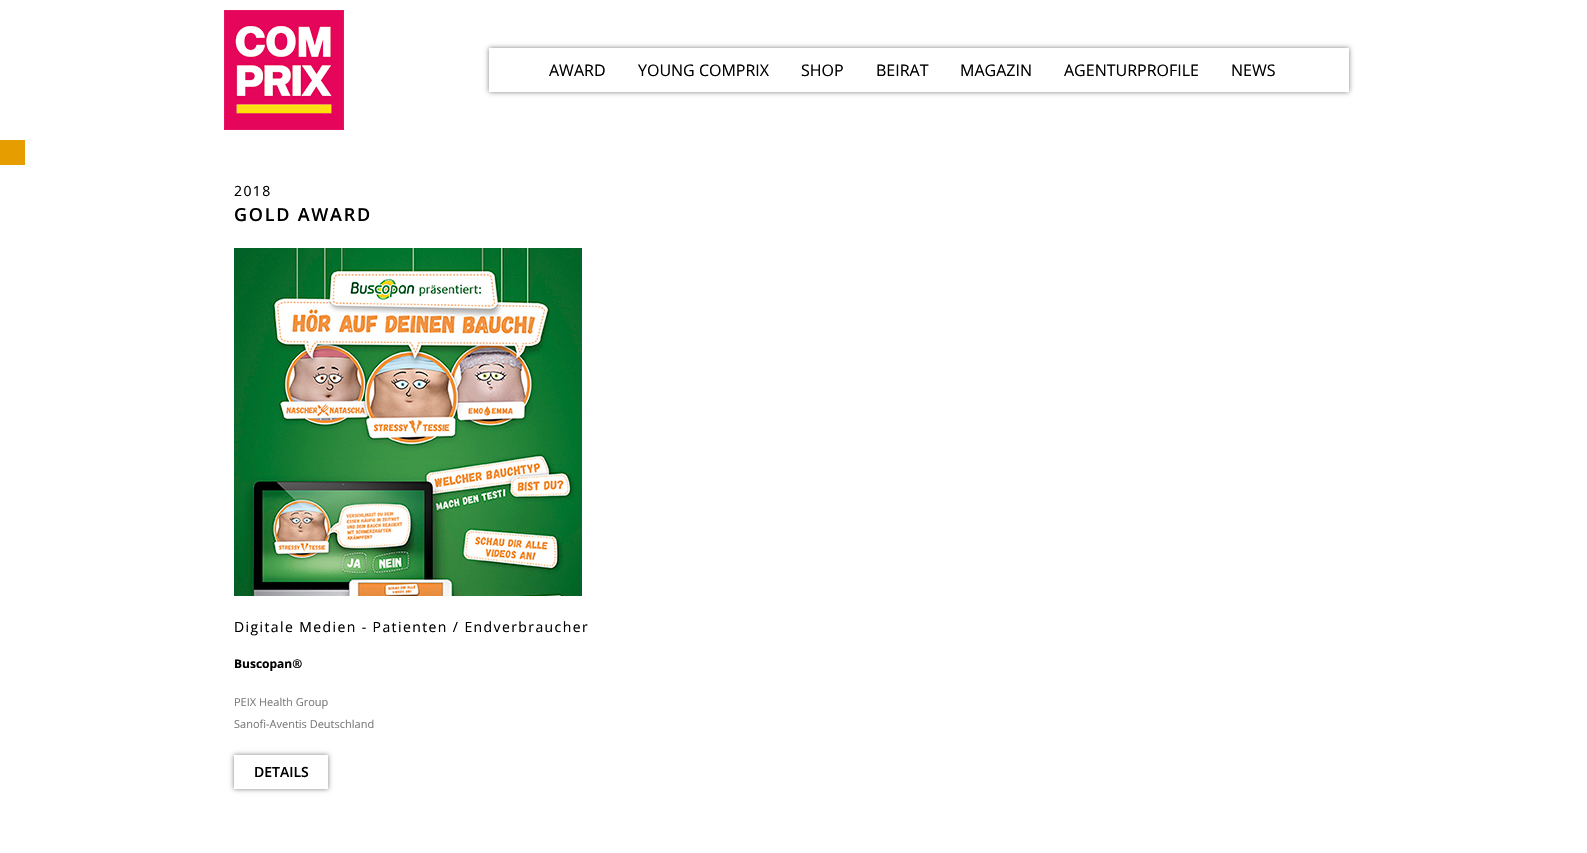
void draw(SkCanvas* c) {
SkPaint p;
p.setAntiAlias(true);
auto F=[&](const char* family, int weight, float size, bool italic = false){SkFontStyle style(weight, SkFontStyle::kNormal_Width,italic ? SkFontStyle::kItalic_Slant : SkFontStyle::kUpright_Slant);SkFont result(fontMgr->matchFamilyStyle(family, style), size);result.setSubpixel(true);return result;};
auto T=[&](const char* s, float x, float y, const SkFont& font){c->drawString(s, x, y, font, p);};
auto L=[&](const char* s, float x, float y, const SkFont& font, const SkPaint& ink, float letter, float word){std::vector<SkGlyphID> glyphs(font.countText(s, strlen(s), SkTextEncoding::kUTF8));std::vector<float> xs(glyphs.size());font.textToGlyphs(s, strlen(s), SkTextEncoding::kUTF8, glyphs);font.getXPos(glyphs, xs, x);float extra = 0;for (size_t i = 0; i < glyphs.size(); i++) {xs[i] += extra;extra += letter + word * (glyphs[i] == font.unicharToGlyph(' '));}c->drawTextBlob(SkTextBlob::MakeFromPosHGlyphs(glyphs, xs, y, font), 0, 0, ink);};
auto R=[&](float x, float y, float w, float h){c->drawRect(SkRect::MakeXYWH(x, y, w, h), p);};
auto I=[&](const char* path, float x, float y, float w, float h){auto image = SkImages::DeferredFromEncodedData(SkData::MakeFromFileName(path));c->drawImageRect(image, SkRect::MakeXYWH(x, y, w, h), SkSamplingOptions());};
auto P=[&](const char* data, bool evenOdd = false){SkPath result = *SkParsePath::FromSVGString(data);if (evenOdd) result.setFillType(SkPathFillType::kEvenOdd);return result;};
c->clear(0xffffffff);
I("1.png",224,10,120,120);
c->save();
c->clipPath(P("M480 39h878v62h-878zm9 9h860v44h-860z",true),true);
p.setColor(0x80000000);
p.setMaskFilter(SkMaskFilter::MakeBlur(kNormal_SkBlurStyle, 2.5));
c->drawRect(SkRect::MakeXYWH(489,48,860,44),p);
p.setMaskFilter(nullptr);
c->restore();
auto f1 = F("Open Sans",400,16);
p.setColor(0xff000000);
T("AWARD",549,76,f1);
T("YOUNG COMPRIX",638,76,f1);
T("SHOP",801,76,f1);
T("BEIRAT",876,76,f1);
T("MAGAZIN",960,76,f1);
T("AGENTURPROFILE",1064,76,f1);
T("NEWS",1231,76,f1);
p.setColor(0xffe69d00);
R(0,140,25,25);
auto f2 = F("Open Sans",400,14);
p.setColor(0xff000000);
L("2018",234,196,f2,p,1.4,0);
auto f3 = F("Open Sans",600,18);
L("GOLD AWARD",234,221,f3,p,1.75,0);
I("2.png",234,248,348,348);
L("Digitale Medien - Patienten / Endverbraucher",234,632,f2,p,1.4,0);
auto f4 = F("Open Sans",700,12);
T("Buscopan®",234,668,f4);
auto f5 = F("Open Sans",400,11);
p.setColor(0xff7a7a7a);
T("PEIX Health Group",234,706,f5);
T("Sanofi-Aventis Deutschland",234,728,f5);
c->save();
c->clipPath(P("M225 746h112v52h-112zm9 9h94v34h-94z",true),true);
p.setColor(0x80000000);
p.setMaskFilter(SkMaskFilter::MakeBlur(kNormal_SkBlurStyle, 2.5));
c->drawRect(SkRect::MakeXYWH(234,755,94,34),p);
p.setMaskFilter(nullptr);
c->restore();
auto f6 = F("Open Sans",600,14);
p.setColor(0xff000000);
T("DETAILS",254,777,f6);
}
